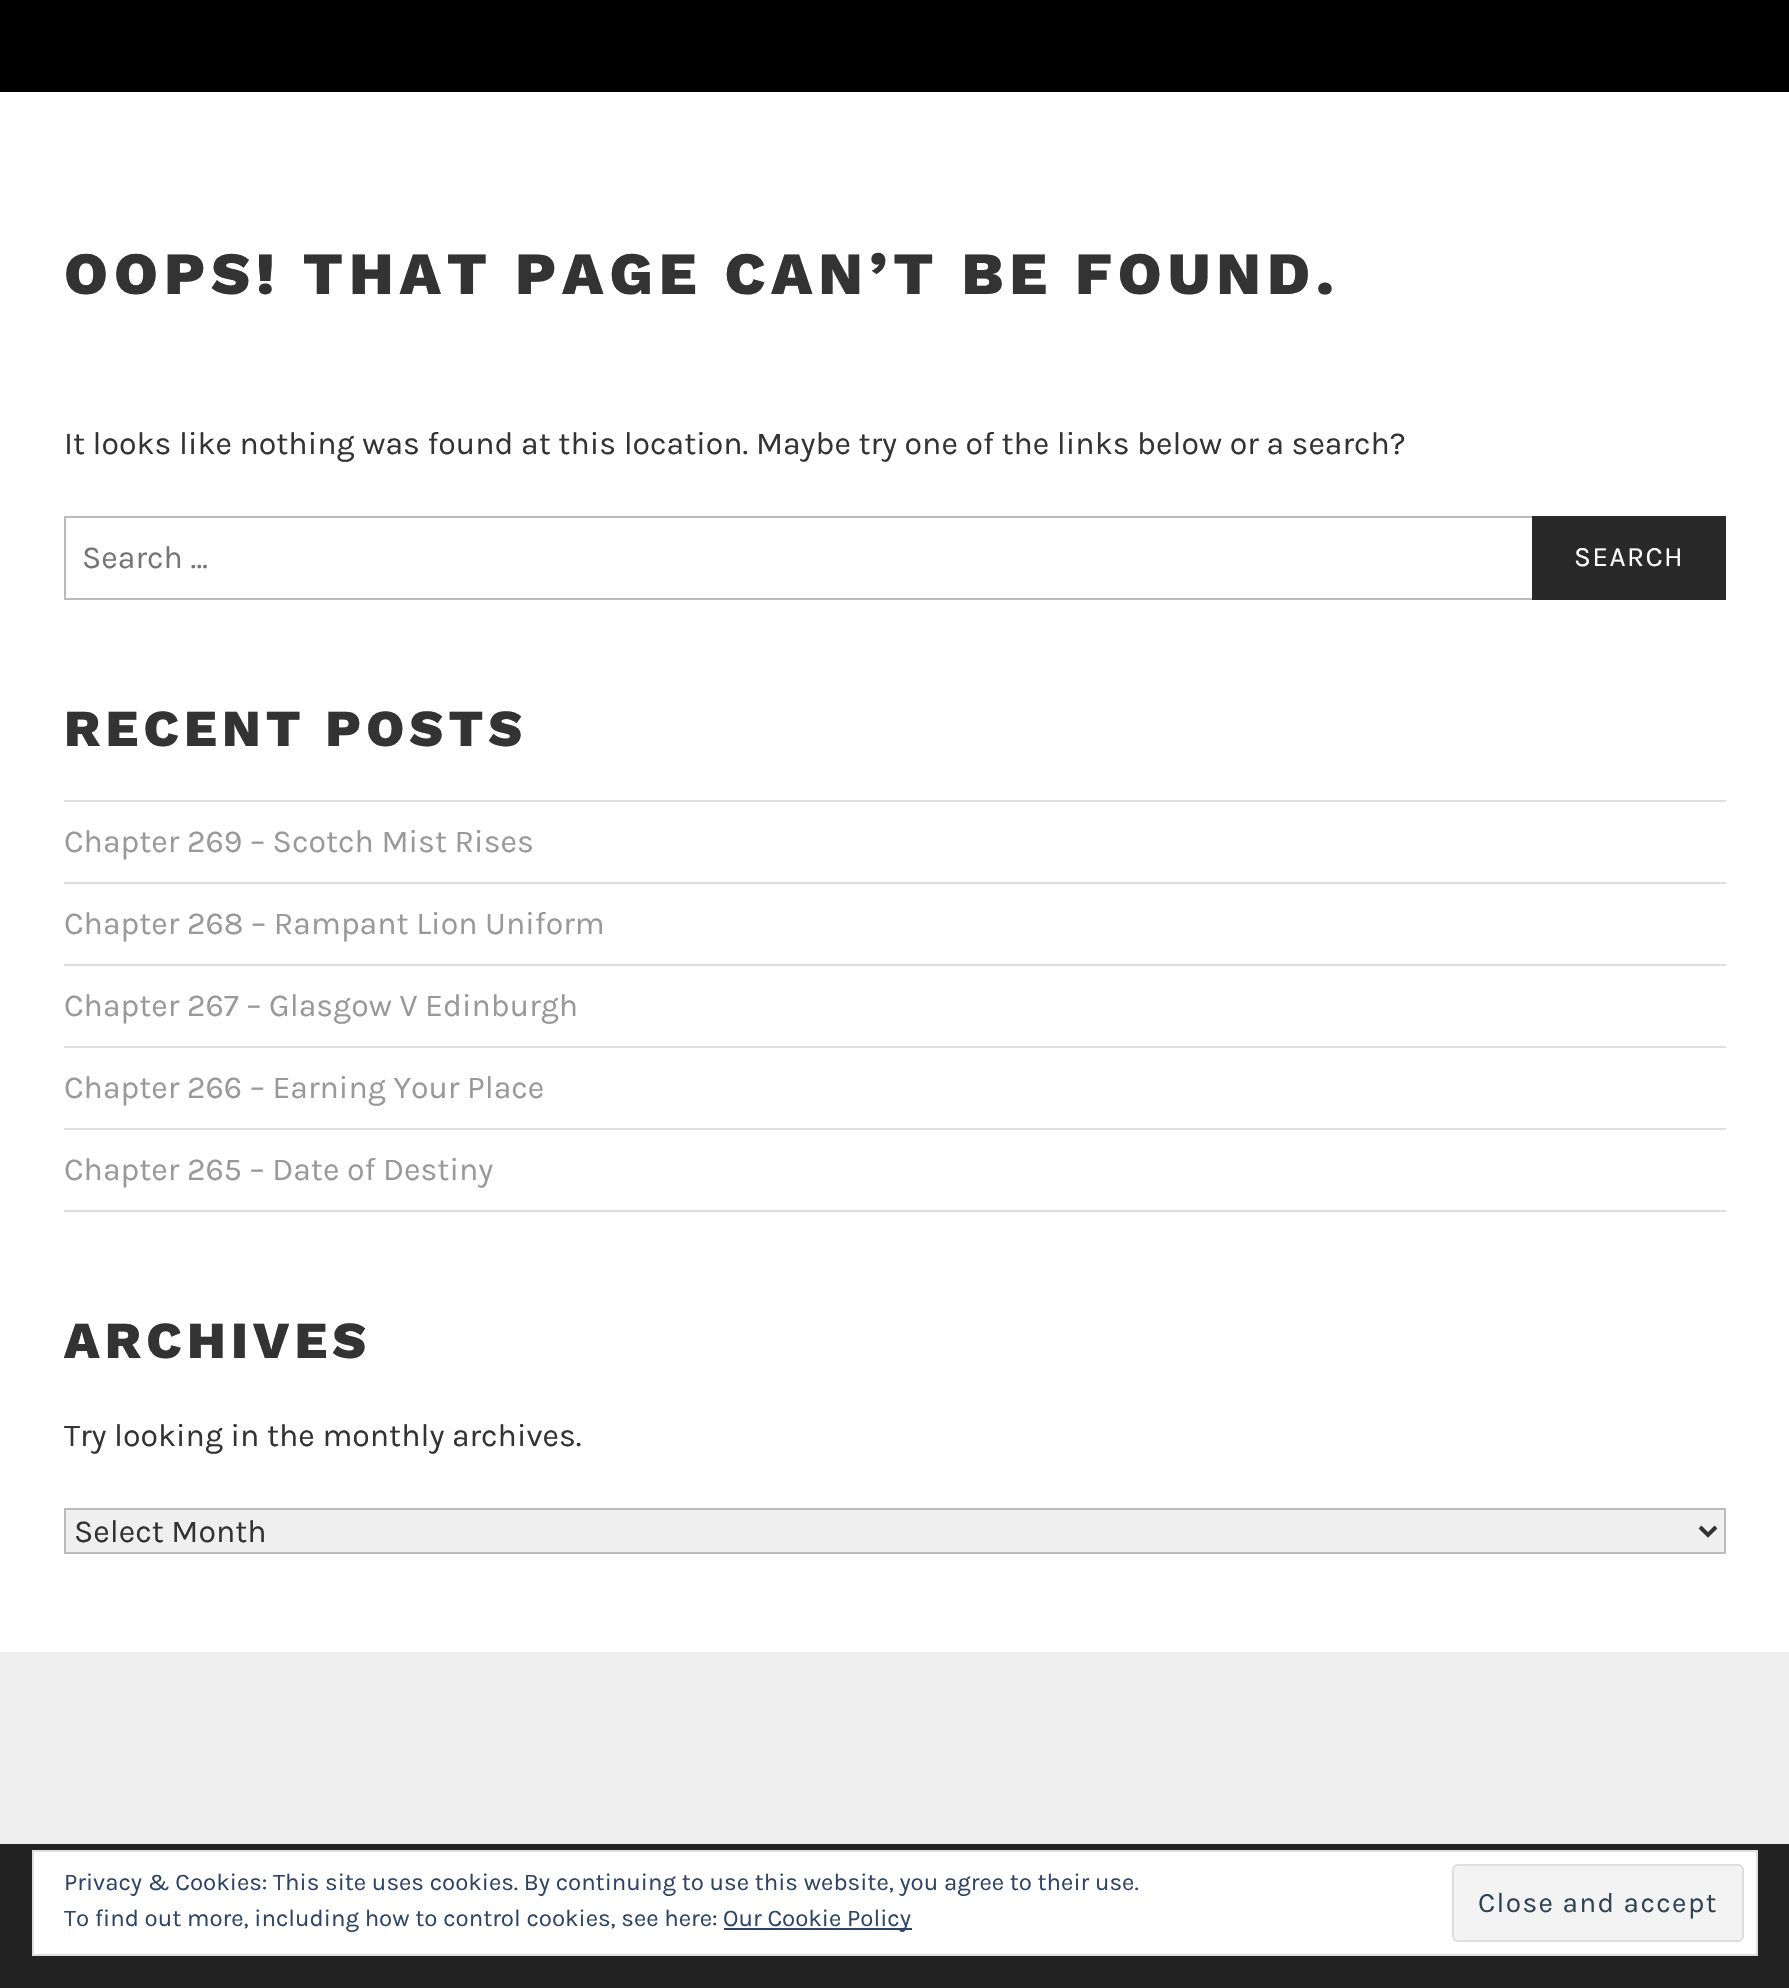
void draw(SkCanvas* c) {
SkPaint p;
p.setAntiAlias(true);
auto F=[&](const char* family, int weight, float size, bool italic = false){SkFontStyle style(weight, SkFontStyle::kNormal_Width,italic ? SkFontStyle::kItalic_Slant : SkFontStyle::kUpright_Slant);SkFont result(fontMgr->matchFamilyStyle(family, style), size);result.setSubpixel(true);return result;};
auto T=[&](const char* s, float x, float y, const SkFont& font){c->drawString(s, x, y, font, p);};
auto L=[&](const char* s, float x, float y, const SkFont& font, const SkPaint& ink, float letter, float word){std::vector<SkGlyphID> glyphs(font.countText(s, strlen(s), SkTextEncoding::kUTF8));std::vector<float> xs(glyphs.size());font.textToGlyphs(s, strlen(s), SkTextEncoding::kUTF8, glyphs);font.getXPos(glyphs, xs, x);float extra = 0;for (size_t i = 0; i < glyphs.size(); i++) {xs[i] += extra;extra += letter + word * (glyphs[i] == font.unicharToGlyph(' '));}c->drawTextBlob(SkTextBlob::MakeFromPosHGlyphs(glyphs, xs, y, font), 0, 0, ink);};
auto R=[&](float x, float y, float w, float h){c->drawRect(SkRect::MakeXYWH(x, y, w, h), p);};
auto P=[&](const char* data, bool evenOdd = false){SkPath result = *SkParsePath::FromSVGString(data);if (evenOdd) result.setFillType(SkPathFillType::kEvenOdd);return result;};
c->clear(0xffffffff);
p.setColor(0xff000000);
R(0,0,1789,92);
auto f1 = F("Work Sans",800,60);
p.setColor(0xff333333);
L("OOPS! THAT PAGE CAN’T BE FOUND.",64,294,f1,p,6,0);
auto f2 = F("Karla",400,32);
T("It looks like nothing was found at this location. Maybe try one of the links below or a search?",64,454,f2);
p.setStroke(true);
p.setStrokeWidth(2);
p.setColor(0xffbbbbbb);
c->drawRect(SkRect::MakeXYWH(65,517,1660,82),p);
p.setStroke(false);
p.setColor(0xff757575);
T("Search …",82,568,f2);
p.setColor(0xff29292a);
R(1532,516,194,84);
auto f3 = F("Karla",400,28);
p.setColor(0xffffffff);
L("SEARCH",1574,566,f3,p,1.4,0);
auto f4 = F("Work Sans",800,52);
p.setColor(0xff333333);
L("RECENT POSTS",64,746,f4,p,5.25,0);
p.setColor(0xffdddddd);
R(64,800,1662,2);
R(64,882,1662,2);
p.setColor(0xff999999);
T("Chapter 269 – Scotch Mist Rises",64,852,f2);
p.setColor(0xffdddddd);
R(64,964,1662,2);
p.setColor(0xff999999);
T("Chapter 268 – Rampant Lion Uniform",64,934,f2);
p.setColor(0xffdddddd);
R(64,1046,1662,2);
p.setColor(0xff999999);
T("Chapter 267 – Glasgow V Edinburgh",64,1016,f2);
p.setColor(0xffdddddd);
R(64,1128,1662,2);
p.setColor(0xff999999);
T("Chapter 266 – Earning Your Place",64,1098,f2);
p.setColor(0xffdddddd);
R(64,1210,1662,2);
p.setColor(0xff999999);
T("Chapter 265 – Date of Destiny",64,1180,f2);
p.setColor(0xff333333);
L("ARCHIVES",64,1358,f4,p,5.25,0);
T("Try looking in the monthly archives.",64,1446,f2);
p.setColor(0xffefefef);
c->drawRect(SkRect::MakeXYWH(65,1509,1660,44),p);
p.setStroke(true);
p.setColor(0xffbbbbbb);
c->drawRect(SkRect::MakeXYWH(65,1509,1660,44),p);
p.setStrokeWidth(4);
p.setColor(0xff333333);
c->drawPath(P("M1700 1527l8 8l8-8"),p);
p.setStroke(false);
T("Select Month",74,1542,f2);
p.setColor(0xffeeeeee);
R(0,1652,1789,192);
p.setColor(0xff222222);
R(0,1844,1789,144);
p.setColor(0xffffffff);
c->drawRect(SkRect::MakeXYWH(33,1851,1724,104),p);
p.setStroke(true);
p.setStrokeWidth(2);
p.setColor(0xffdedede);
c->drawRect(SkRect::MakeXYWH(33,1851,1724,104),p);
auto f5 = F("Karla",400,24);
p.setStroke(false);
p.setColor(0xff2e4467);
T("Privacy & Cookies: This site uses cookies. By continuing to use this website, you agree to their use.",64,1890,f5);
T("To find out more, including how to control cookies, see here:",64,1926,f5);
R(724,1928,188,2);
T("Our Cookie Policy",723,1926,f5);
p.setColor(0xfff3f3f3);
c->drawRoundRect(SkRect::MakeXYWH(1453,1865,290,76),5,5,p);
p.setStroke(true);
p.setColor(0xffdedede);
c->drawRoundRect(SkRect::MakeXYWH(1453,1865,290,76),5,5,p);
p.setStroke(false);
p.setColor(0xff2e4453);
L("Close and accept",1478,1912,f3,p,1.4,0);
}
